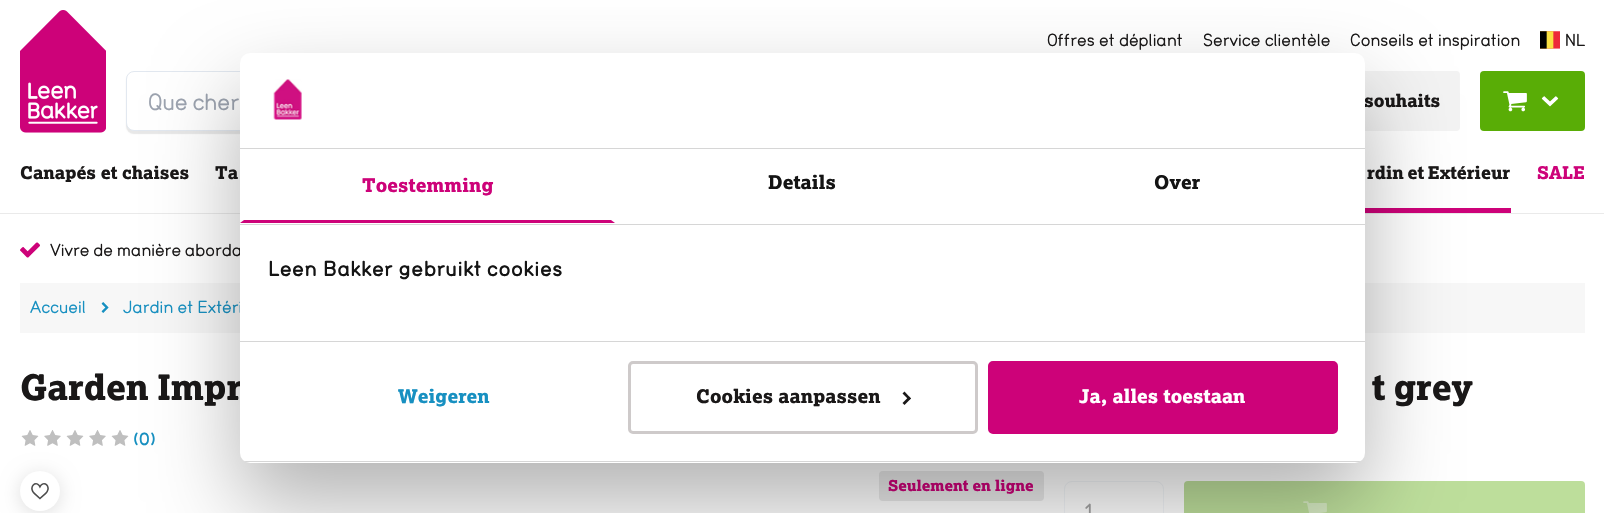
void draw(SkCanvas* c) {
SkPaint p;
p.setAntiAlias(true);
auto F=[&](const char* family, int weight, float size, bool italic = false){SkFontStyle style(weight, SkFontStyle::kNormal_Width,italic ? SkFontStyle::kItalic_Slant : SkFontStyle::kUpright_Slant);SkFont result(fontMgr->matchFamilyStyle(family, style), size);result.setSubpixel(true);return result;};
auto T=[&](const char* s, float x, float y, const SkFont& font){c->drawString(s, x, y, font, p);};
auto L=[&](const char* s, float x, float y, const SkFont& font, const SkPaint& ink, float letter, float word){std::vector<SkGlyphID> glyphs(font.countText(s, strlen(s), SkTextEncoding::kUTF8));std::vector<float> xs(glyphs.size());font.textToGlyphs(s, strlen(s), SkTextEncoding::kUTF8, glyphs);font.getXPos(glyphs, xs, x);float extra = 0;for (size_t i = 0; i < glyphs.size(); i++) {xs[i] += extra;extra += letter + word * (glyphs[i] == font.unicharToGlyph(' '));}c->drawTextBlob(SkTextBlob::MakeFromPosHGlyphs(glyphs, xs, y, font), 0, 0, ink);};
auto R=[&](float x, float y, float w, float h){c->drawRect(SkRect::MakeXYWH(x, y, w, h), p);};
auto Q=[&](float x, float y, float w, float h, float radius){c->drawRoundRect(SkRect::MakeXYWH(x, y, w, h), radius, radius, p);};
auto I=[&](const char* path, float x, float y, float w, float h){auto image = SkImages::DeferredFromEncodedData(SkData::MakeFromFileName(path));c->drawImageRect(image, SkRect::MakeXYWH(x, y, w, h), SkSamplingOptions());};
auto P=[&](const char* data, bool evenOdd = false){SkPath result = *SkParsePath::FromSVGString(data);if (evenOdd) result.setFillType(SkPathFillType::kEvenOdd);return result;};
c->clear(0xffffffff);
p.setColor(0xffeaeaea);
R(0,213,1604,1);
I("1.png",20,10,86,123);
auto f1 = F("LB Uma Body",700,15);
p.setColor(0xff1a1818);
T("Offres et dépliant",1047,46,f1);
T("Service clientèle",1203,46,f1);
T("Conseils et inspiration",1350,46,f1);
I("2.png",1540,31,20,18);
T("NL",1565,46,f1);
p.setColor(0x17000000);
p.setMaskFilter(SkMaskFilter::MakeBlur(kNormal_SkBlurStyle, .5));
c->drawRoundRect(SkRect::MakeXYWH(126,74,660,60),8,8,p);
p.setMaskFilter(nullptr);
p.setColor(0xffffffff);
c->drawRoundRect(SkRect::MakeXYWH(126.5,71.5,659,59),7.5,7.5,p);
p.setStroke(true);
p.setStrokeWidth(1);
p.setColor(0xffe2e8f0);
c->drawRoundRect(SkRect::MakeXYWH(126.5,71.5,659,59),7.5,7.5,p);
auto f2 = F("LB Uma Body",700,20);
p.setStroke(false);
p.setColor(0xff9ca3af);
L("Que cher",148,110,f2,p,0,-1);
p.setColor(0xfff3f3f3);
Q(1235,71,225,60,4);
auto f3 = F("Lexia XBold",700,17.5);
p.setColor(0xff1a1818);
T("souhaits",1364,107,f3);
p.setColor(0xff59ad06);
Q(1480,71,105,60,4);
I("3.png",1503,91,24,21);
I("4.png",1541,96,18,11);
p.setColor(0xff1a1818);
T("Canapés et chaises",20,179,f3);
L("Ta",215,179,f3,p,0,-1);
p.setColor(0xffcd0279);
R(1365,208,146,5);
p.setColor(0xff1a1818);
L("rdin et Extérieur",1367,179,f3,p,0,-1);
p.setColor(0xffcd0279);
T("SALE",1537,179,f3);
I("5.png",20,242,20,16);
p.setColor(0xff1a1818);
L("Vivre de manière aborda",50,256,f1,p,0,-.5);
p.setColor(0xfff7f7f7);
R(20,283,1565,50);
p.setColor(0xff1790c1);
T("Accueil",30,313,f1);
I("6.png",101,302,8,11);
T("Jardin et Extéri",123,313,f1);
auto f4 = F("Lexia XBold",700,35);
p.setColor(0xff1a1818);
L("Garden Impr",20,400,f4,p,0,-1);
L("t grey",1372,400,f4,p,0,-1);
I("7.png",21,430,18,16);
I("8.png",44,430,17,16);
I("7.png",66,430,18,16);
I("8.png",89,430,17,16);
I("7.png",111,430,18,16);
auto f5 = F("LB Uma Body",800,15);
p.setColor(0xff1790c1);
T("(0)",133,445,f5);
p.setColor(0x21000000);
p.setMaskFilter(SkMaskFilter::MakeBlur(kNormal_SkBlurStyle, 9.5));
c->drawRoundRect(SkRect::MakeXYWH(20,474,40,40),20,20,p);
p.setMaskFilter(nullptr);
p.setColor(0xffffffff);
c->drawCircle(40,491,20,p);
I("9.png",31,483,18,17);
p.setColor(0xffeaeaea);
Q(879,471,165,30,4);
auto f6 = F("Lexia XBold",700,15);
p.setColor(0xffcd0279);
T("Seulement en ligne",888,491,f6);
p.setStroke(true);
p.setColor(0xfff3f6f9);
c->drawRoundRect(SkRect::MakeXYWH(1064.5,481.5,99,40),7.5,7.5,p);
p.setStroke(false);
p.setColor(0xffa3a3a3);
T("1",1085,520,f2);
p.setColor(0xffbdde9b);
Q(1184,481,401,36,4);
I("10.png",1303,501,24,12);
p.setColor(0x4d000000);
p.setMaskFilter(SkMaskFilter::MakeBlur(kNormal_SkBlurStyle, 42.5));
c->drawRoundRect(SkRect::MakeXYWH(240,93,1125,410),10,10,p);
p.setMaskFilter(nullptr);
p.setColor(0xffffffff);
Q(240,53,1125,410,10);
p.setColor(0xffd6d6d6);
R(240,148,1125,1);
I("11.png",273,79,29,41);
R(240,224,1125,1);
p.setColor(0xffcd0279);
c->drawPath(P("M615 223h-375l4-3h367z"),p);
auto f7 = F("Lexia XBold",700,18.75);
L("Toestemming",362,192,f7,p,.1,0);
p.setColor(0xff141414);
L("Details",768,189,f7,p,.1,0);
L("Over",1154,189,f7,p,.1,0);
p.setColor(0xffd6d6d6);
R(240,341,1125,1);
auto f8 = F("LB Uma Body",800,18.75);
p.setColor(0xff141414);
L("Leen Bakker gebruikt cookies",268,276,f8,p,.3,0);
c->save();
c->clipPath(P("M250 53h1105c5.5 0 10 4.5 10 10v390c0 5.5-4.5 10-10 10h-1105c-5.5 0-10-4.5-10-10v-390c0-5.5 4.5-10 10-10z"),true);
p.setColor(0xffd6d6d6);
R(240,461,1125,1);
c->restore();
p.setColor(0xff1790c1);
L("Weigeren",398,403,f7,p,.1,0);
p.setStroke(true);
p.setStrokeWidth(3);
p.setColor(0xffcecaca);
c->drawRoundRect(SkRect::MakeXYWH(629.5,362.5,347,70),3.5,3.5,p);
p.setStroke(false);
p.setColor(0xff1a1818);
L("Cookies aanpassen",696,403,f7,p,.1,0);
c->drawPath(P("M904.5 391.5l6.5 7l-2 1.5l-6.5-6.5z"),p);
c->drawPath(P("M909 396.5l2 2l-6.5 6.5l-2-2z"),p);
p.setColor(0xffcd0279);
c->drawRoundRect(SkRect::MakeXYWH(989.5,362.5,347,70),3.5,3.5,p);
p.setStroke(true);
c->drawRoundRect(SkRect::MakeXYWH(989.5,362.5,347,70),3.5,3.5,p);
p.setStroke(false);
p.setColor(0xffffffff);
L("Ja, alles toestaan",1079,403,f7,p,.1,0);
}
